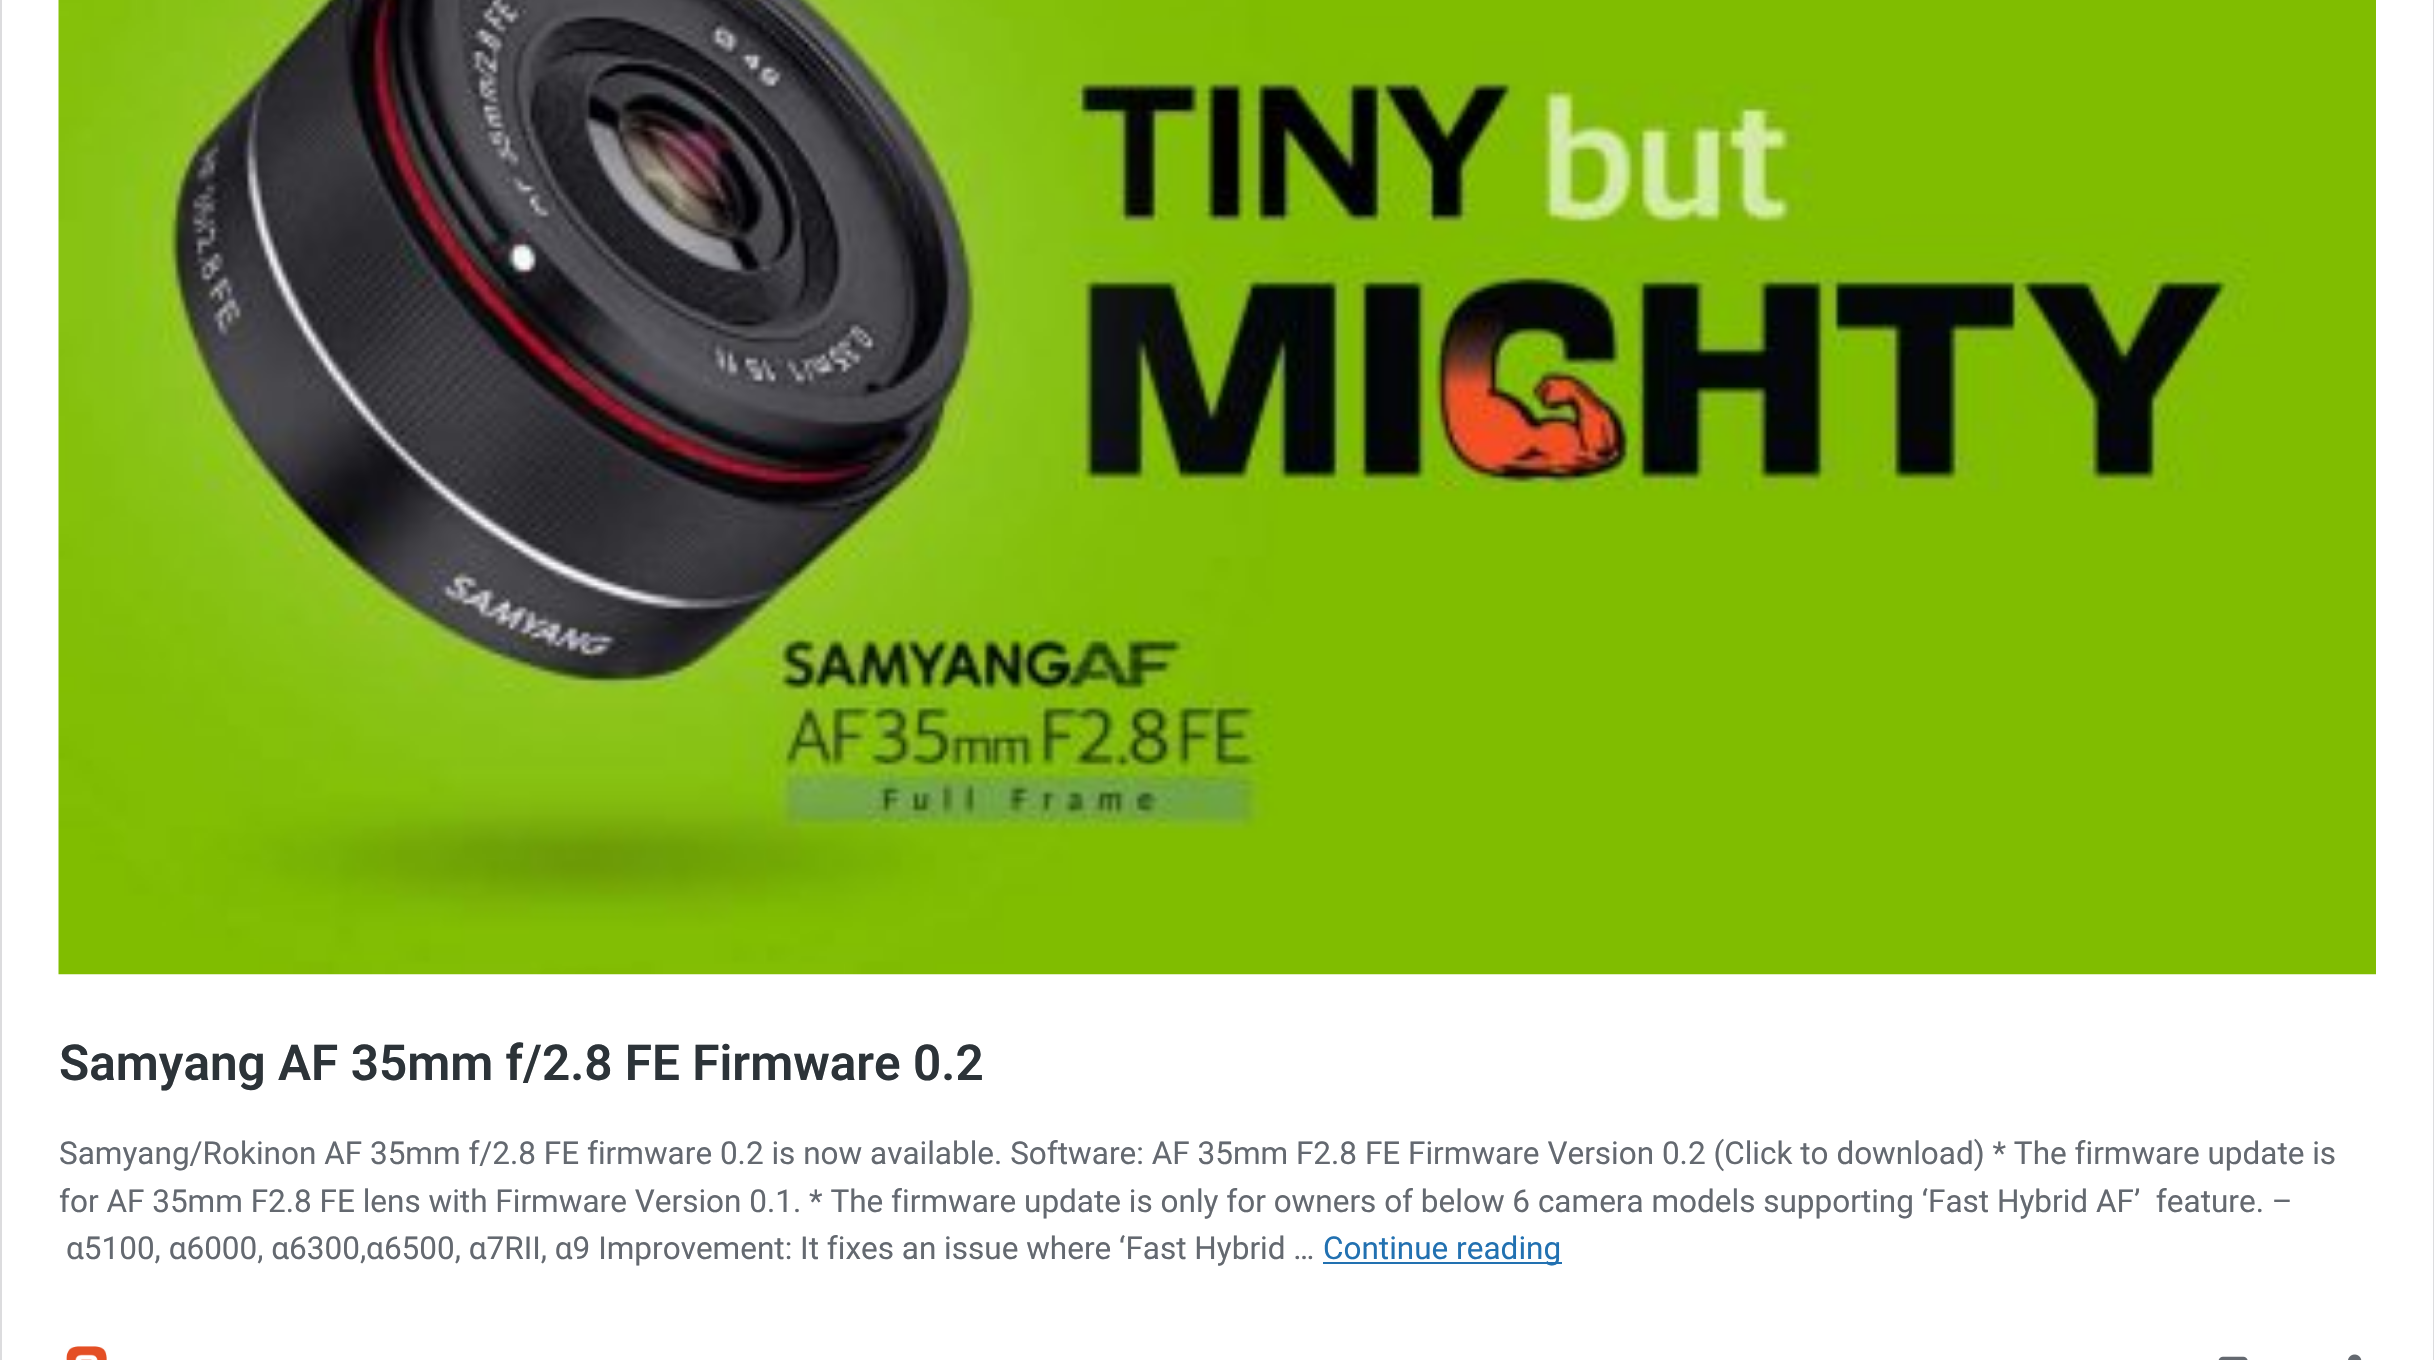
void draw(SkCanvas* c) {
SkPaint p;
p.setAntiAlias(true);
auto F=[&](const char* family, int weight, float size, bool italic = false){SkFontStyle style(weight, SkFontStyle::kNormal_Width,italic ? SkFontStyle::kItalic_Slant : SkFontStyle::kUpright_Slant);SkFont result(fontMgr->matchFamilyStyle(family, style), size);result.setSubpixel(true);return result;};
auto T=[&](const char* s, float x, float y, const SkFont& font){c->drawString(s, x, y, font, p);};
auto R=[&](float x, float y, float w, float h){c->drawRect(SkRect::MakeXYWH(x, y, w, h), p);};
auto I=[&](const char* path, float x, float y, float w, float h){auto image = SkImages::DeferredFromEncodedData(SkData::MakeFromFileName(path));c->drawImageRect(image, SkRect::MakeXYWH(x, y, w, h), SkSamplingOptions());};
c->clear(0xffffffff);
p.setStroke(true);
p.setStrokeWidth(2);
p.setColor(0xffdcdcde);
c->drawRect(SkRect::MakeXYWH(1,-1,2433,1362),p);
I("1.png",58,0,2318,975);
auto f1 = F("Roboto",600,49.5);
p.setStroke(false);
p.setColor(0xff2c3338);
T("Samyang AF 35mm f/2.8 FE Firmware 0.2",59,1080,f1);
auto f2 = F("Roboto",400,31.5);
p.setColor(0xff646970);
T("Samyang/Rokinon AF 35mm f/2.8 FE firmware 0.2 is now available. Software: AF 35mm F2.8 FE Firmware Version 0.2 (Click to download) * The firmware update is",59,1164,f2);
T("for AF 35mm F2.8 FE lens with Firmware Version 0.1. * The firmware update is only for owners of below 6 camera models supporting ‘Fast Hybrid AF’  feature. –",59,1212,f2);
T("α5100, α6000, α6300,α6500, α7RII, α9 Improvement: It fixes an issue where ‘Fast Hybrid …",66,1259,f2);
p.setColor(0xff2271b1);
R(1323,1262,239,2);
T("Continue reading",1323,1259,f2);
I("2.png",66,1346,41,14);
I("3.png",2218,1356,30,4);
I("4.png",2348,1354,14,6);
}
